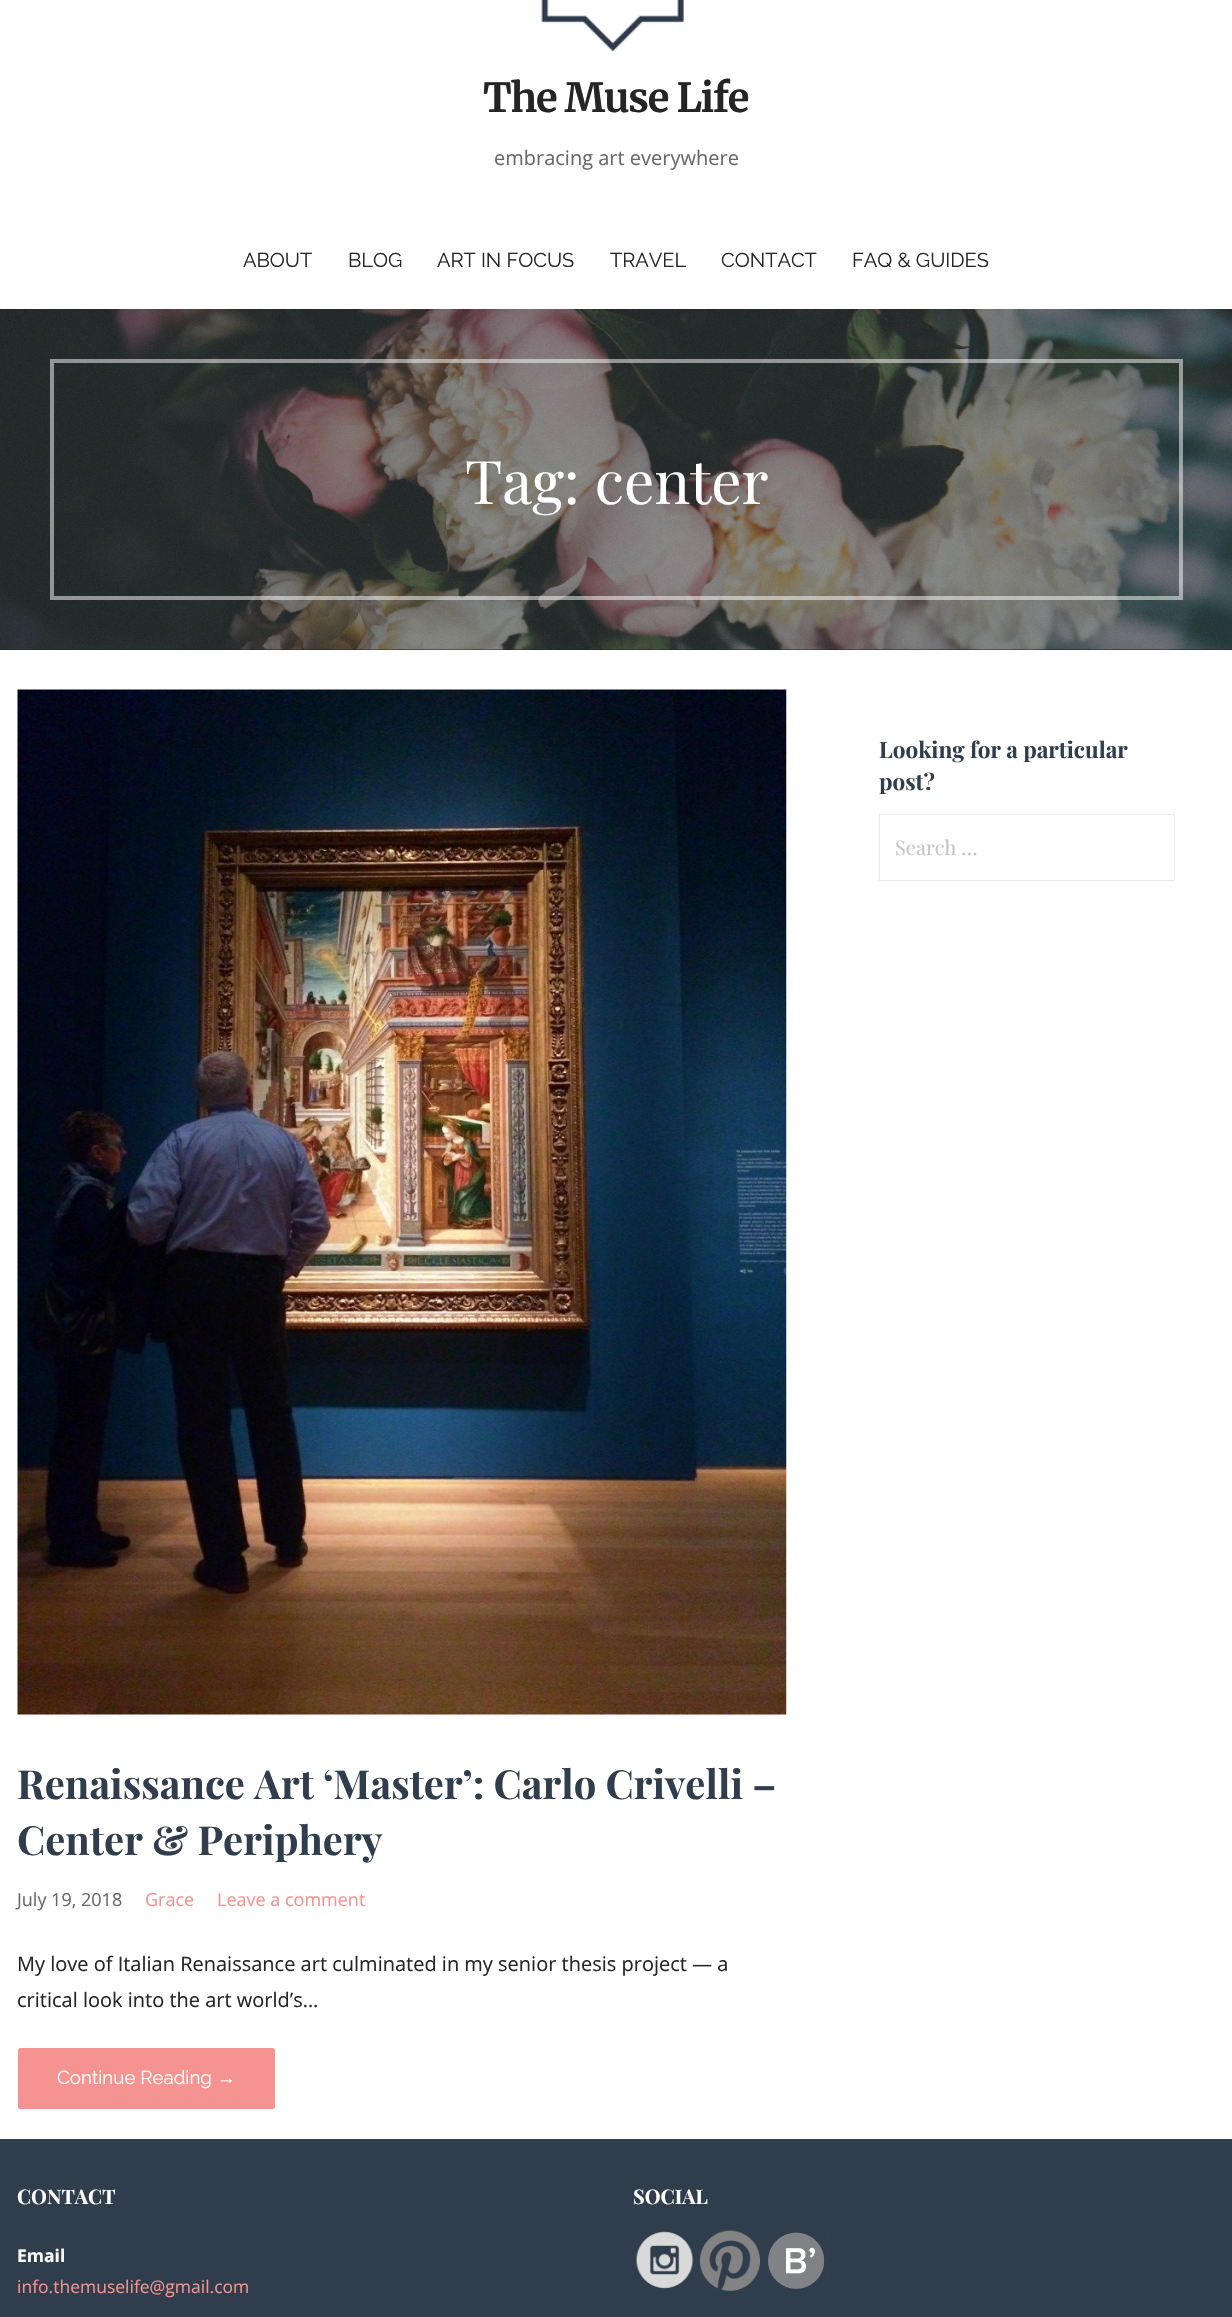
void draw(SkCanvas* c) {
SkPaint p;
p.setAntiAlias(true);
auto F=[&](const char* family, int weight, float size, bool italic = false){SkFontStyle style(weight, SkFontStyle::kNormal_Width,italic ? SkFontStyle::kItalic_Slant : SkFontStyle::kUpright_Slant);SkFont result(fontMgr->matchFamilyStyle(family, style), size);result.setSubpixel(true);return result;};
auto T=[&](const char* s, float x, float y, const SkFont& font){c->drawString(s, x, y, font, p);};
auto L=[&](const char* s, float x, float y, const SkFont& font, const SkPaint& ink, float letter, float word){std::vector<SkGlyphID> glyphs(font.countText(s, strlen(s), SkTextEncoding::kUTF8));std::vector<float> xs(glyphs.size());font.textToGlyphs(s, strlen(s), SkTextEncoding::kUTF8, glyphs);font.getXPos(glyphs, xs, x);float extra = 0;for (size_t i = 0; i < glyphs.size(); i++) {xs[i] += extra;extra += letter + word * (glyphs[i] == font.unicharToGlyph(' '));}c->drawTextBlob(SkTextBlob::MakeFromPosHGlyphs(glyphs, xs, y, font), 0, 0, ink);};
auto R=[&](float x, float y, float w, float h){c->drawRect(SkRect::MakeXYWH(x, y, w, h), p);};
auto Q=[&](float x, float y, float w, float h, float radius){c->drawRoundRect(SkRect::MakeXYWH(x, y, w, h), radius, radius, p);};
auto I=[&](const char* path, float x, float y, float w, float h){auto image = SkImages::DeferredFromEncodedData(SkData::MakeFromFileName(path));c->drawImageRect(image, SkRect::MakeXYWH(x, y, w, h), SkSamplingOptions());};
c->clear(0xffffffff);
I("1.png",541,0,143,52);
auto f1 = F("Merriweather",700,40);
p.setColor(0xff252525);
L("The Muse Life",483,112,f1,p,-1.25,0);
auto f2 = F("Open Sans",400,20);
p.setColor(0xff686868);
T("embracing art everywhere",494,165,f2);
auto f3 = F("Raleway",400,20);
p.setColor(0xff252525);
T("ABOUT",243,267,f3);
T("BLOG",348,267,f3);
T("ART IN FOCUS",437,267,f3);
T("TRAVEL",610,267,f3);
T("CONTACT",721,267,f3);
T("FAQ & GUIDES",852,267,f3);
R(0,649,1232,1);
I("2.png",0,309,1232,341);
p.setStroke(true);
p.setStrokeWidth(4);
p.setColor(0x80ffffff);
c->drawRect(SkRect::MakeXYWH(52,361,1129,237),p);
auto f4 = F("Playfair Display",400,60);
p.setStroke(false);
p.setColor(0xffffffff);
T("Tag: center",465,504,f4);
auto f5 = F("Playfair Display",700,22.5);
p.setColor(0xff303d4c);
T("Looking for a particular",879,758,f5);
T("post?",879,790,f5);
p.setStroke(true);
p.setStrokeWidth(1);
p.setColor(0xffe9e9e9);
c->drawRect(SkRect::MakeXYWH(879.5,814.5,295,66),p);
auto f6 = F("Playfair Display",400,20);
p.setStroke(false);
p.setColor(0xffc4c4c4);
T("Search …",895,855,f6);
I("3.png",17,689,770,1026);
auto f7 = F("Playfair Display",700,40);
p.setColor(0xff303d4c);
T("Renaissance Art ‘Master’: Carlo Crivelli –",17,1799,f7);
T("Center & Periphery",17,1855,f7);
auto f8 = F("Open Sans",400,18);
p.setColor(0xff686868);
T("July 19, 2018",17,1906,f8);
p.setColor(0xfff49390);
T("Grace",145,1906,f8);
T("Leave a comment",217,1906,f8);
p.setColor(0xff252525);
T("My love of Italian Renaissance art culminated in my senior thesis project — a",17,1971,f2);
T("critical look into the art world’s…",17,2007,f2);
p.setColor(0xfff49390);
Q(18,2048,257,61,2.5);
auto f9 = F("Raleway",400,18.75);
p.setColor(0xffffffff);
T("Continue Reading",57,2084,f9);
auto f10 = F("Liberation Sans",400,18.75);
T("→",217,2084,f10);
p.setColor(0xff303d4c);
R(0,2139,1232,178);
auto f11 = F("Playfair Display",700,20);
p.setColor(0xffffffff);
T("CONTACT",17,2204,f11);
auto f12 = F("Open Sans",700,17.5);
T("Email",17,2262,f12);
auto f13 = F("Open Sans",400,17.5);
p.setColor(0xfff49390);
T("info.themuselife@gmail.com",17,2293,f13);
p.setColor(0xffffffff);
T("SOCIAL",633,2204,f11);
I("4.png",635,2231,59,58);
I("5.png",700,2230,60,61);
I("6.png",768,2232,60,59);
}
